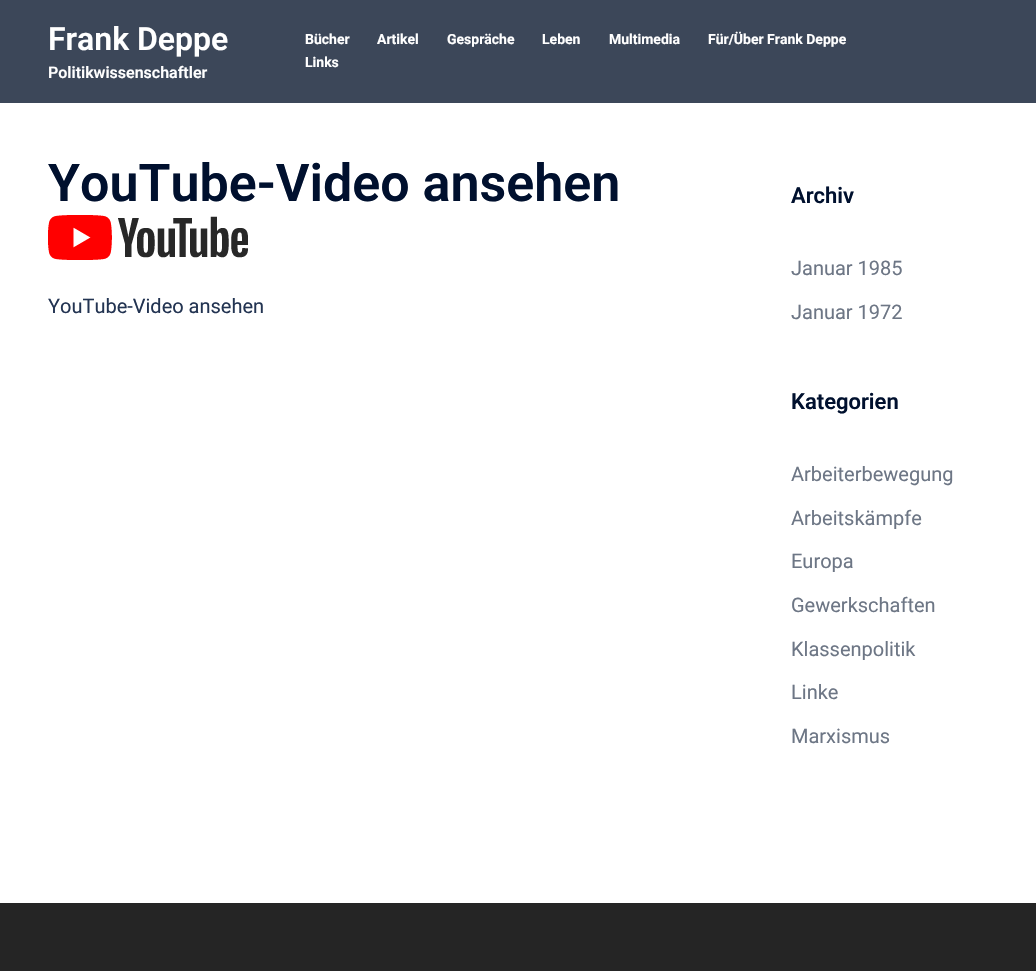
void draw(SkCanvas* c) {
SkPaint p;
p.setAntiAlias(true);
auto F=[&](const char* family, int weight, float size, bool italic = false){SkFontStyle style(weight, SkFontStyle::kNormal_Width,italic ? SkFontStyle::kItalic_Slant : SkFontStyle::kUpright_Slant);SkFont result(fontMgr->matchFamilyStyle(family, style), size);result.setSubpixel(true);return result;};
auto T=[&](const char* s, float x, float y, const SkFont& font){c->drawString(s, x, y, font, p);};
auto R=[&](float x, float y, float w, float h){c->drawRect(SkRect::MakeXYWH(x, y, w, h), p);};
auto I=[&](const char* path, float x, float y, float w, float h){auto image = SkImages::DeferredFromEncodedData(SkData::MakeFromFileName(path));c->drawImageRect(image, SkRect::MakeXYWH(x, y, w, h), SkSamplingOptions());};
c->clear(0xffffffff);
p.setColor(0xff3c4759);
R(0,0,1036,103);
auto f1 = F("Roboto",600,32);
p.setColor(0xffffffff);
T("Frank Deppe",48,50,f1);
auto f2 = F("Roboto",600,16);
T("Politikwissenschaftler",48,78,f2);
auto f3 = F("Roboto",700,14);
T("Bücher",305,44,f3);
T("Artikel",377,44,f3);
T("Gespräche",447,44,f3);
T("Leben",542,44,f3);
T("Multimedia",609,44,f3);
T("Für/Über Frank Deppe",708,44,f3);
T("Links",305,67,f3);
auto f4 = F("Roboto",600,52);
p.setColor(0xff00102e);
T("YouTube-Video ansehen",48,201,f4);
I("1.png",48,215,200,45);
auto f5 = F("Roboto",400,20);
p.setColor(0xff233452);
T("YouTube-Video ansehen",48,313,f5);
auto f6 = F("Roboto",600,22);
p.setColor(0xff00102e);
T("Archiv",791,203,f6);
p.setColor(0xff6d7685);
T("Januar 1985",791,275,f5);
T("Januar 1972",791,319,f5);
p.setColor(0xff00102e);
T("Kategorien",791,409,f6);
p.setColor(0xff6d7685);
T("Arbeiterbewegung",791,481,f5);
T("Arbeitskämpfe",791,525,f5);
T("Europa",791,568,f5);
T("Gewerkschaften",791,612,f5);
T("Klassenpolitik",791,656,f5);
T("Linke",791,699,f5);
T("Marxismus",791,743,f5);
p.setColor(0xff252525);
R(0,903,1036,68);
}
